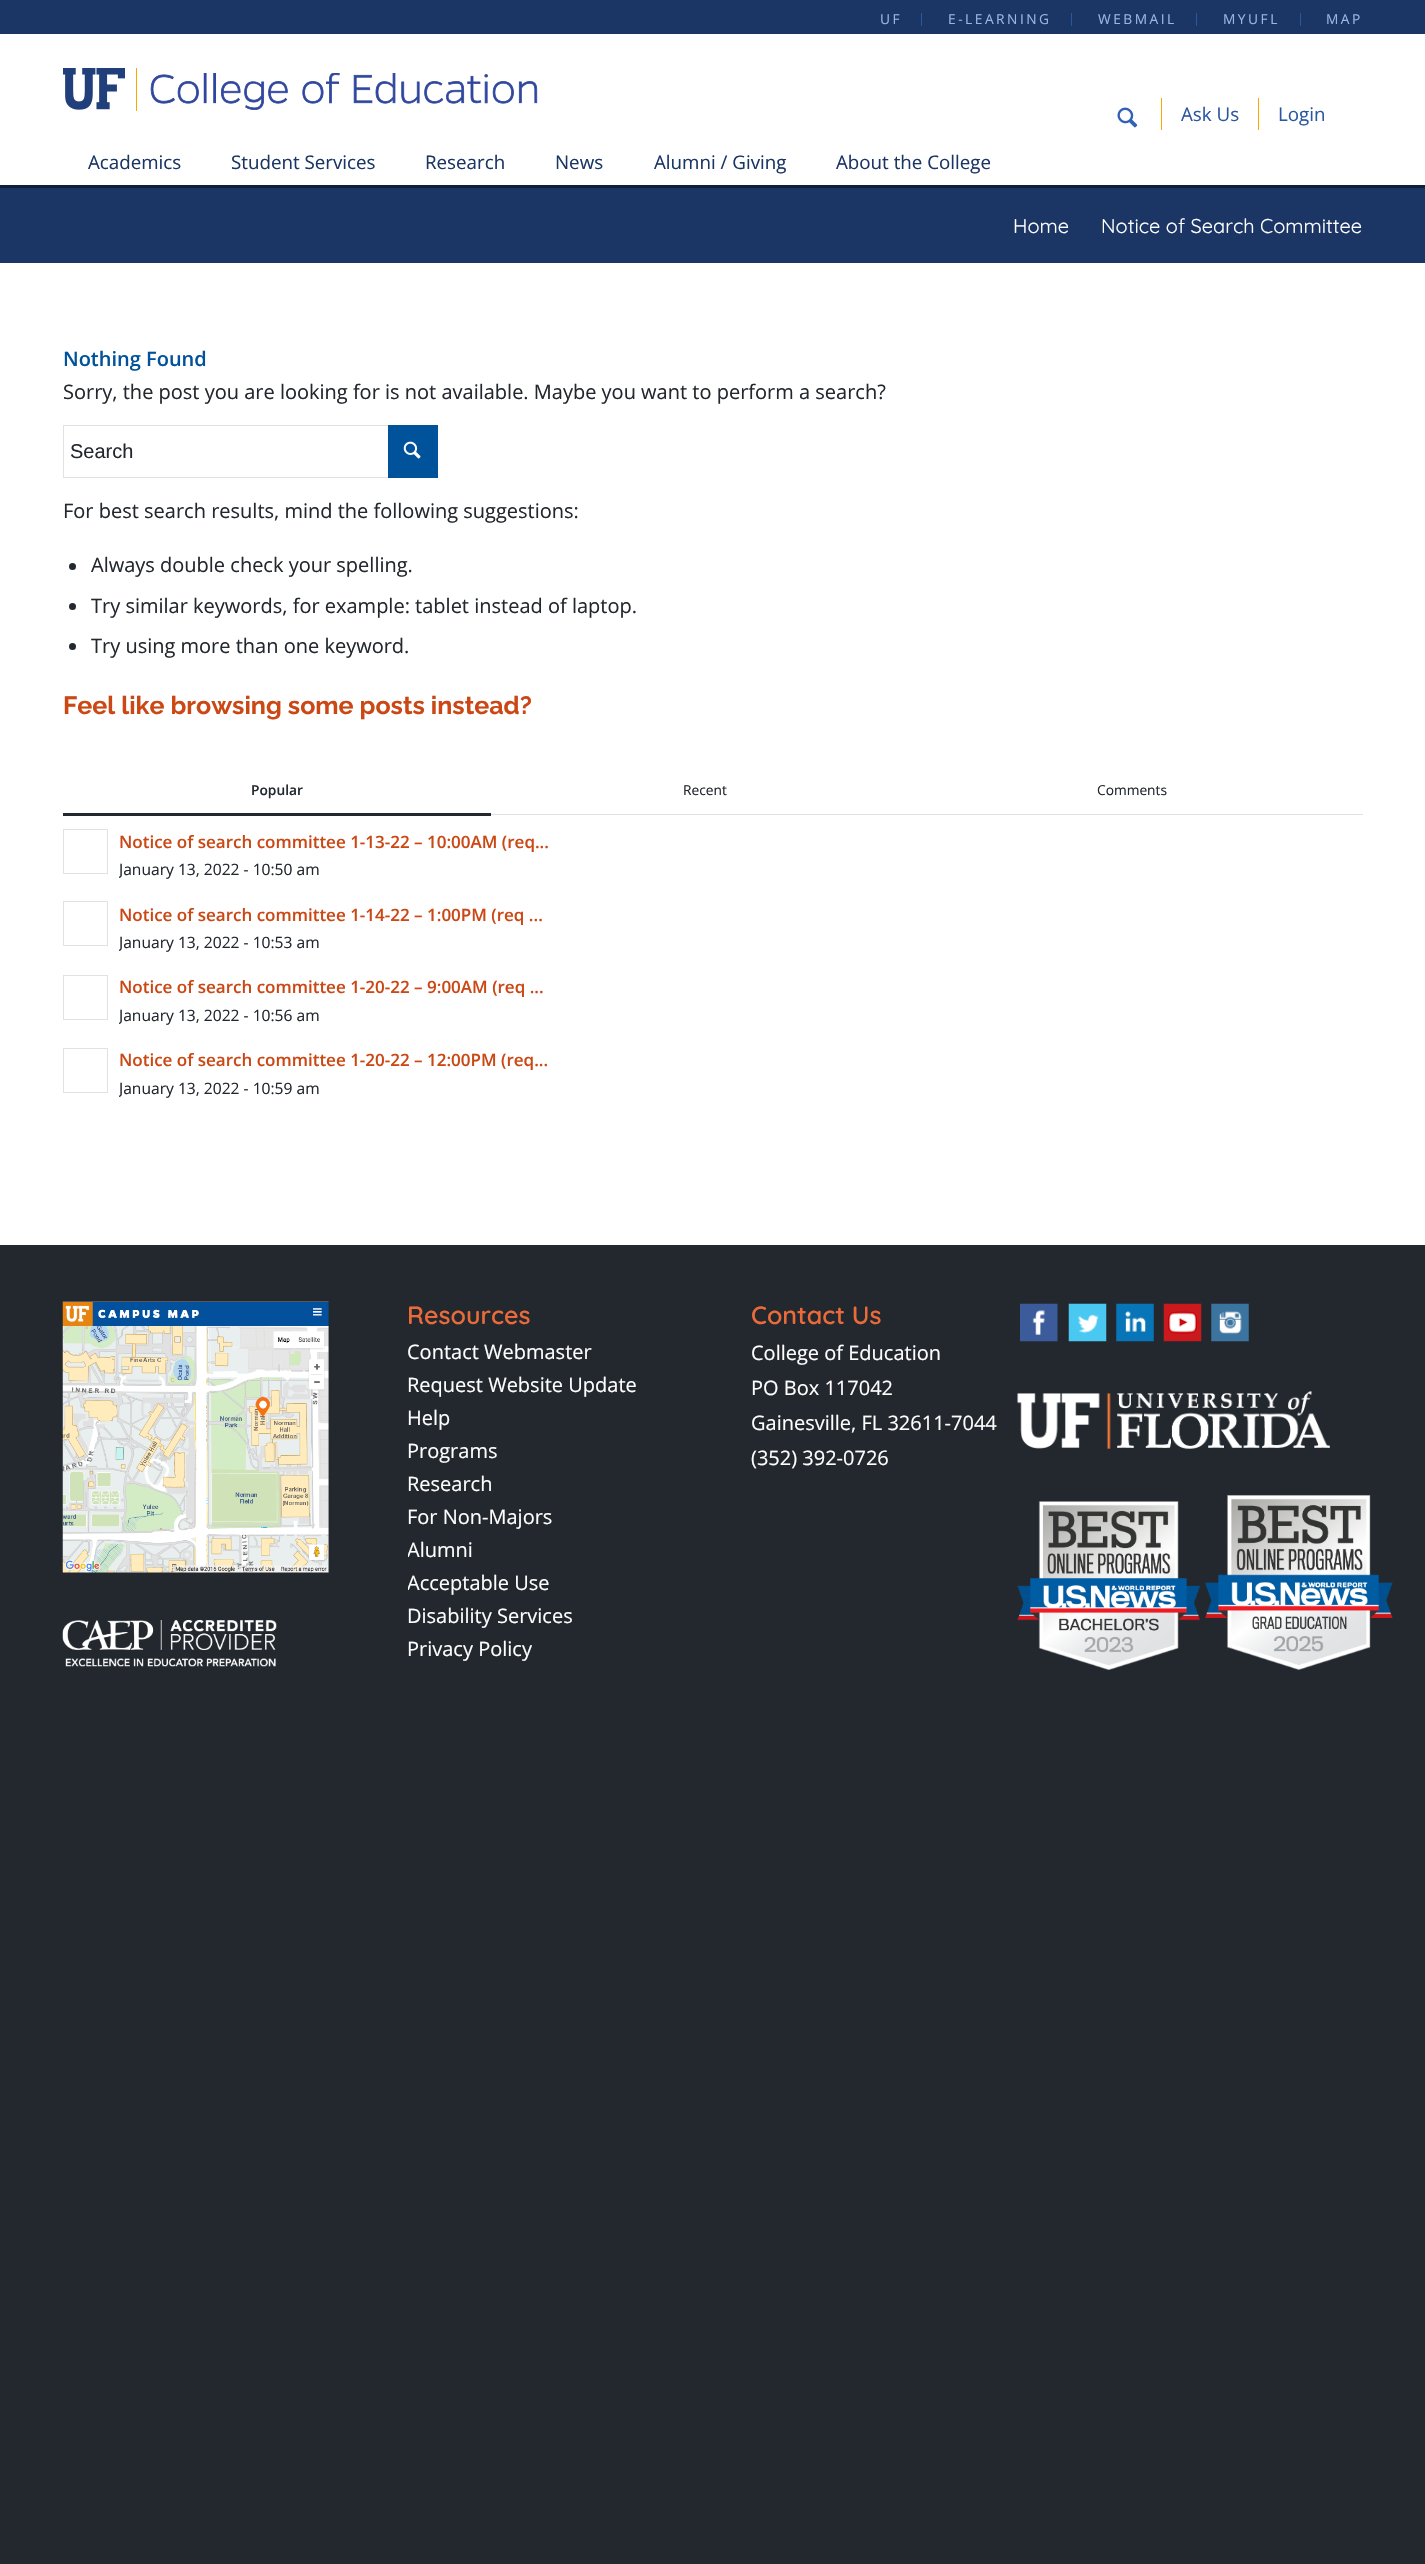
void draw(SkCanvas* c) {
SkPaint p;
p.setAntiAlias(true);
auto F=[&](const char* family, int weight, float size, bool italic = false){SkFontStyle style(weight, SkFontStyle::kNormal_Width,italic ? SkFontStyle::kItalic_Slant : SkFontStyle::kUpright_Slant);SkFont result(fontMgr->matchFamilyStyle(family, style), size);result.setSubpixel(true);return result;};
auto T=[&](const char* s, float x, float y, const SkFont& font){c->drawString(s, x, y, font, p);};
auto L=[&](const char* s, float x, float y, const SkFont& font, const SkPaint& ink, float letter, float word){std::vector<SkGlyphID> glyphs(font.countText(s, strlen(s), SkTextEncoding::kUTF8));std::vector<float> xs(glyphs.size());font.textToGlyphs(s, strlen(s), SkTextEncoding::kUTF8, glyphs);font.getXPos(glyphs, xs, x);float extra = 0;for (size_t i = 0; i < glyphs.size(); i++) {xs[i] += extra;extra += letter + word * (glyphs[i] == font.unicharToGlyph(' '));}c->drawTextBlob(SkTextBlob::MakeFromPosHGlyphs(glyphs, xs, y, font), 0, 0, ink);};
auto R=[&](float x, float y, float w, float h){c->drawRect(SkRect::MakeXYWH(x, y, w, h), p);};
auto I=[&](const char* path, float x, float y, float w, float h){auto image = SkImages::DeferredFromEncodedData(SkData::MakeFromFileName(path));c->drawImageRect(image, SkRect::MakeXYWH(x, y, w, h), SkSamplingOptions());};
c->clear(0xff23282f);
p.setColor(0xffffffff);
R(0,34,1425,151);
p.setColor(0xff10203c);
R(0,185,1425,3);
p.setColor(0xff1b3664);
R(0,0,1425,34);
auto f1 = F("Open Sans",400,13.75);
p.setColor(0xff9ab5e4);
L("UF",880,24,f1,p,2.5,0);
p.setColor(0xff2b57a0);
R(921,13,1,13);
p.setColor(0xff9ab5e4);
L("E-LEARNING",948,24,f1,p,2.5,0);
p.setColor(0xff2b57a0);
R(1071,13,1,13);
p.setColor(0xff9ab5e4);
L("WEBMAIL",1098,24,f1,p,2.5,0);
p.setColor(0xff2b57a0);
R(1196,13,1,13);
p.setColor(0xff9ab5e4);
L("MYUFL",1223,24,f1,p,2.5,0);
p.setColor(0xff2b57a0);
R(1300,13,1,13);
p.setColor(0xff9ab5e4);
L("MAP",1326,24,f1,p,2.5,0);
I("1.png",63,68,62,42);
p.setColor(0xffffa500);
R(136,68,1,43);
I("2.png",150,73,388,37);
I("3.png",1117,107,21,21);
R(1161,98,1,32);
auto f2 = F("Open Sans",400,18.75);
p.setColor(0xff2b57a0);
T("Ask Us",1181,121,f2);
p.setColor(0xffffa500);
R(1258,98,1,32);
p.setColor(0xff2b57a0);
T("Login",1278,121,f2);
p.setColor(0xff1b3664);
T("Academics",88,169,f2);
T("Student Services",231,169,f2);
T("Research",425,169,f2);
T("News",555,169,f2);
T("Alumni / Giving",654,169,f2);
T("About the College",836,169,f2);
R(0,188,1425,75);
auto f3 = F("Quicksand",400,20);
p.setColor(0xffffffff);
T("Home",1013,233,f3);
T("Notice of Search Committee",1101,233,f3);
R(0,263,1425,982);
auto f4 = F("Open Sans",600,20);
p.setColor(0xff00539b);
T("Nothing Found",63,366,f4);
auto f5 = F("Open Sans",400,20);
p.setColor(0xff23282f);
T("Sorry, the post you are looking for is not available. Maybe you want to perform a search?",63,399,f5);
p.setStroke(true);
p.setStrokeWidth(1);
p.setColor(0xffe2e2e2);
c->drawRect(SkRect::MakeXYWH(63.5,425.5,374,52),p);
auto f6 = F("Liberation Sans",400,20);
p.setStroke(false);
p.setColor(0xff23282f);
T("Search",70,458,f6);
p.setColor(0xff00539b);
R(388,425,50,53);
I("4.png",403,441,18,18);
p.setColor(0xff23282f);
T("For best search results, mind the following suggestions:",63,518,f5);
c->drawCircle(72.5,566.5,3.5,p);
T("Always double check your spelling.",91,572,f5);
c->drawCircle(72.5,606.5,3.5,p);
T("Try similar keywords, for example: tablet instead of laptop.",91,613,f5);
c->drawCircle(72.5,646.5,3.5,p);
T("Try using more than one keyword.",91,653,f5);
auto f7 = F("Raleway",700,25);
p.setColor(0xffcb4815);
T("Feel like browsing some posts instead?",63,714,f7);
p.setColor(0xffe2e2e2);
R(491,814,872,1);
p.setColor(0xff23282f);
R(63,813,428,3);
auto f8 = F("Open Sans",600,13.75);
T("Popular",251,795,f8);
T("Recent",683,795,f1);
T("Comments",1097,795,f1);
p.setStroke(true);
p.setColor(0xffe2e2e2);
c->drawRect(SkRect::MakeXYWH(63.5,829.5,44,44),p);
auto f9 = F("Open Sans",600,17);
p.setStroke(false);
p.setColor(0xffcb4815);
T("Notice of search committee 1-13-22 – 10:00AM (req...",119,848,f9);
c->save();
c->clipRect(SkRect::MakeXYWH(119,826,1244,58));
auto f10 = F("Open Sans",400,15.6);
p.setColor(0xff23282f);
T("January 13, 2022 - 10:50 am",119,875,f10);
c->restore();
p.setStroke(true);
p.setColor(0xffe2e2e2);
c->drawRect(SkRect::MakeXYWH(63.5,901.5,44,44),p);
p.setStroke(false);
p.setColor(0xffcb4815);
T("Notice of search committee 1-14-22 – 1:00PM (req ...",119,921,f9);
c->save();
c->clipRect(SkRect::MakeXYWH(119,899,1244,59));
p.setColor(0xff23282f);
T("January 13, 2022 - 10:53 am",119,948,f10);
c->restore();
p.setStroke(true);
p.setColor(0xffe2e2e2);
c->drawRect(SkRect::MakeXYWH(63.5,975.5,44,44),p);
p.setStroke(false);
p.setColor(0xffcb4815);
T("Notice of search committee 1-20-22 – 9:00AM (req ...",119,993,f9);
c->save();
c->clipRect(SkRect::MakeXYWH(119,973,1244,57));
p.setColor(0xff23282f);
T("January 13, 2022 - 10:56 am",119,1021,f10);
c->restore();
p.setStroke(true);
p.setColor(0xffe2e2e2);
c->drawRect(SkRect::MakeXYWH(63.5,1048.5,44,44),p);
p.setStroke(false);
p.setColor(0xffcb4815);
T("Notice of search committee 1-20-22 – 12:00PM (req...",119,1066,f9);
c->save();
c->clipRect(SkRect::MakeXYWH(119,1045,1244,58));
p.setColor(0xff23282f);
T("January 13, 2022 - 10:59 am",119,1094,f10);
c->restore();
I("5.png",62,1301,267,272);
I("6.png",62,1620,215,47);
auto f11 = F("Quicksand",600,25);
p.setColor(0xffea6b39);
T("Resources",407,1324,f11);
p.setColor(0xffffffff);
T("Contact Webmaster",407,1359,f5);
T("Request Website Update",407,1392,f5);
T("Help",407,1425,f5);
T("Programs",407,1458,f5);
T("Research",407,1491,f5);
T("For Non-Majors",407,1524,f5);
c->save();
c->clipRect(SkRect::MakeXYWH(408,1301,266,364));
T("Alumni",407,1557,f5);
T("Acceptable Use",407,1590,f5);
c->restore();
T("Disability Services",407,1623,f5);
T("Privacy Policy",407,1656,f5);
p.setColor(0xffea6b39);
T("Contact Us",751,1324,f11);
p.setColor(0xffffffff);
T("College of Education",751,1360,f5);
T("PO Box 117042",751,1395,f5);
T("Gainesville, FL 32611-7044",751,1430,f5);
T("(352) 392-0726",751,1465,f5);
I("7.png",1020,1303,38,39);
I("8.png",1068,1303,39,39);
I("9.png",1116,1303,38,39);
I("10.png",1163,1303,39,39);
I("11.png",1211,1303,38,39);
I("12.png",1017,1391,313,58);
I("13.png",1017,1501,183,169);
I("14.png",1205,1495,188,175);
}
